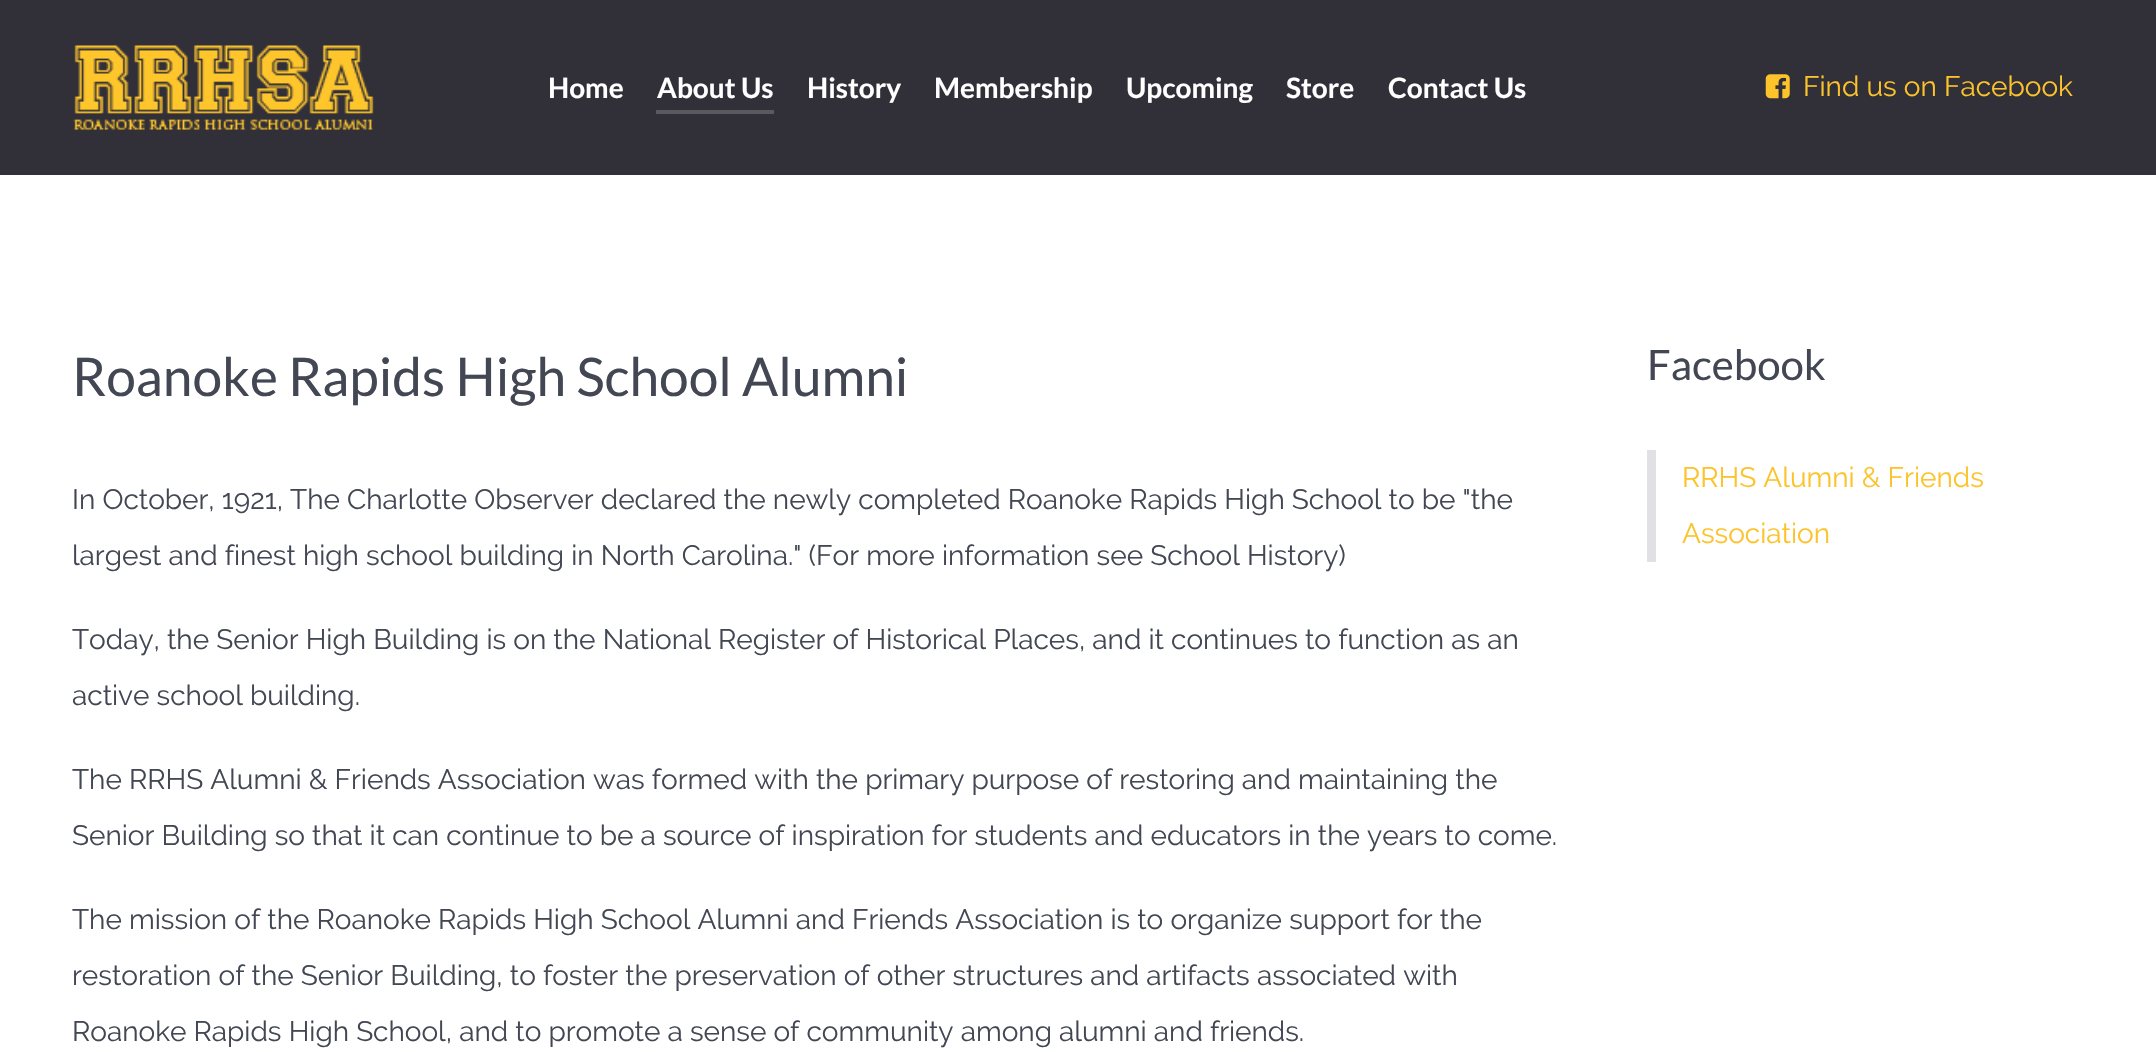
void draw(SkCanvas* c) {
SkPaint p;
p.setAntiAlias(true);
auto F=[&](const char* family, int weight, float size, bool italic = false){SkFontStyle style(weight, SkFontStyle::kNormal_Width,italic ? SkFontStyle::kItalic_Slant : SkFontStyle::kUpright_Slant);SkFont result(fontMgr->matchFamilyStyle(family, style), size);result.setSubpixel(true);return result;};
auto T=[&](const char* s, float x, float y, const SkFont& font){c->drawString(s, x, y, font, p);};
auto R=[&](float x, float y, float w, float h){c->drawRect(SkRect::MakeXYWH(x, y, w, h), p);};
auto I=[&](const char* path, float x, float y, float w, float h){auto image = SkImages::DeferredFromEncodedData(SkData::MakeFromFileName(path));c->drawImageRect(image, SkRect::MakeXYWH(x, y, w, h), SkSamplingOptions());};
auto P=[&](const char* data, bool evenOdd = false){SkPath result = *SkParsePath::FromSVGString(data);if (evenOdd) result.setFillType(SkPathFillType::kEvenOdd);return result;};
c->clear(0xffffffff);
p.setColor(0xff312f38);
R(0,0,2156,175);
I("1.png",73,45,301,85);
auto f1 = F("Lato",700,28);
p.setColor(0xffffffff);
T("Home",548,98,f1);
p.setColor(0xff5a5960);
c->drawPath(P("M656 75v39h118v-39v35h-118z"),p);
p.setColor(0xffffffff);
T("About Us",657,98,f1);
T("History",807,98,f1);
T("Membership",934,98,f1);
T("Upcoming",1126,98,f1);
T("Store",1286,98,f1);
T("Contact Us",1388,98,f1);
I("2.png",1765,74,25,25);
auto f2 = F("Raleway",400,28);
p.setColor(0xfffcc32b);
T("Find us on Facebook",1803,96,f2);
auto f3 = F("Lato",400,53.25);
p.setColor(0xff424753);
T("Roanoke Rapids High School Alumni",72,396,f3);
T("In October, 1921, The Charlotte Observer declared the newly completed Roanoke Rapids High School to be \"the",72,509,f2);
T("largest and finest high school building in North Carolina.\" (For more information see School History)",72,565,f2);
T("Today, the Senior High Building is on the National Register of Historical Places, and it continues to function as an",72,649,f2);
T("active school building.",72,705,f2);
T("The RRHS Alumni & Friends Association was formed with the primary purpose of restoring and maintaining the",72,789,f2);
T("Senior Building so that it can continue to be a source of inspiration for students and educators in the years to come.",72,845,f2);
T("The mission of the Roanoke Rapids High School Alumni and Friends Association is to organize support for the",72,929,f2);
T("restoration of the Senior Building, to foster the preservation of other structures and artifacts associated with",72,985,f2);
T("Roanoke Rapids High School, and to promote a sense of community among alumni and friends.",72,1041,f2);
auto f4 = F("Lato",400,42);
T("Facebook",1647,380,f4);
p.setColor(0xffe0e0e5);
R(1647,450,9,112);
p.setColor(0xfffcc32b);
T("RRHS Alumni & Friends",1682,487,f2);
T("Association",1682,543,f2);
}
